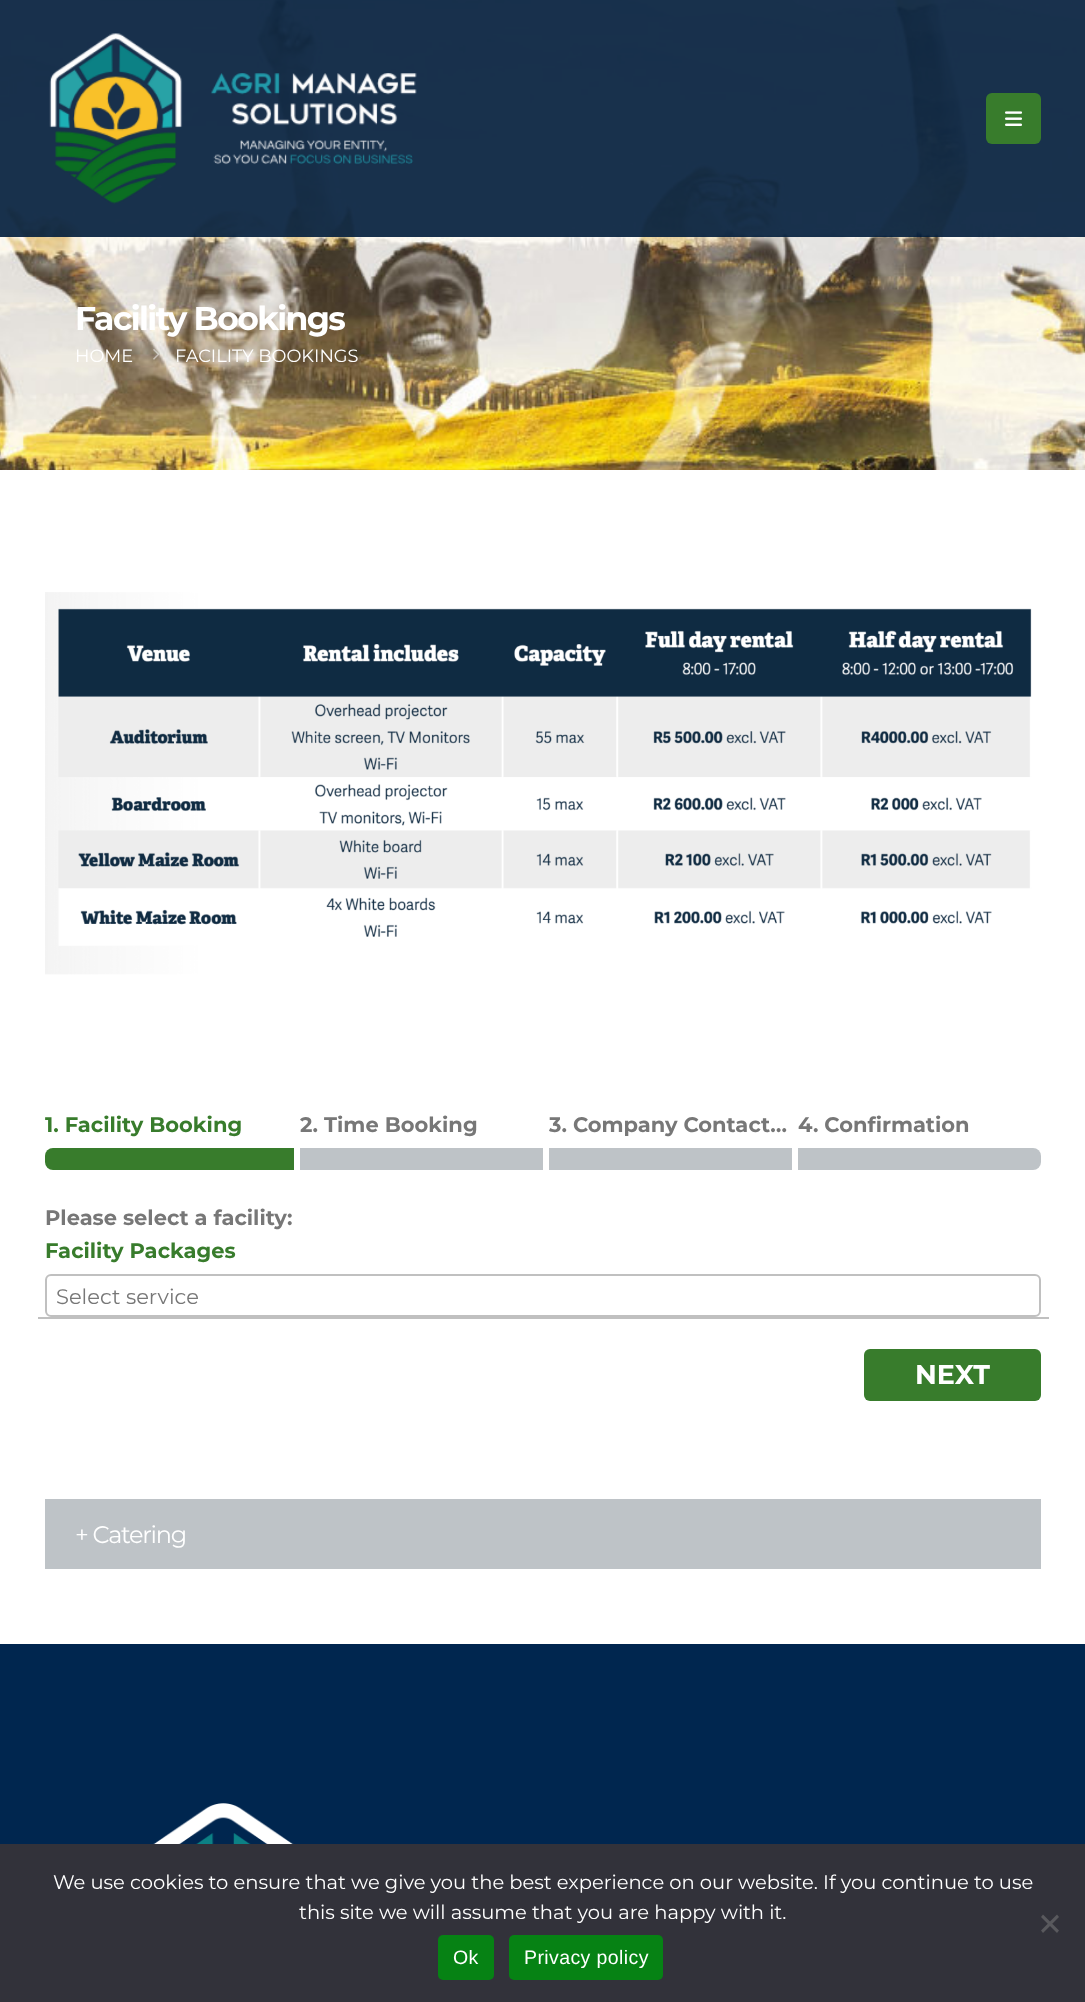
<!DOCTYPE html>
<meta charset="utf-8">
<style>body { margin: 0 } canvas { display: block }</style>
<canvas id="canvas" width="1085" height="2002"></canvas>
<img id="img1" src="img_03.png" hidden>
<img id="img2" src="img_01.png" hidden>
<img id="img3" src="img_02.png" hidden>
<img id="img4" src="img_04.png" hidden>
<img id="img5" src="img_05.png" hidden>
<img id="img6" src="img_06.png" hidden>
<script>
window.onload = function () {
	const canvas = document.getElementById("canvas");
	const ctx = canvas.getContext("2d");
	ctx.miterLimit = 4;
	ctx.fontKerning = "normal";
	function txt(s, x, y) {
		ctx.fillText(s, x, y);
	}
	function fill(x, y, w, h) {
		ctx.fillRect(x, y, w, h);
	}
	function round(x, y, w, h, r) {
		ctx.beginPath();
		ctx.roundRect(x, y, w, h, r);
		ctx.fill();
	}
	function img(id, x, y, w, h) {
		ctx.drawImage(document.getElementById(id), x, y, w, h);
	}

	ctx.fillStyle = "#FFFFFF";
	fill(0, 0, 1085, 2002);
	img("img1", 0, 0, 1085, 470);
	ctx.fillStyle = "rgba(0, 0, 0, 0.7)";
	fill(0, 0, 1085, 237);
	ctx.fillStyle = "rgba(0, 38, 79, 0.67)";
	fill(0, 0, 1085, 237);
	img("img2", 49, 33, 368, 171);
	ctx.fillStyle = "#387C2C";
	round(986, 93, 55, 51, 6);
	img("img3", 1005, 111, 17, 15);
	img("img4", 153, 349, 7, 11);
	img("img5", 45, 592, 987, 383);
	ctx.beginPath();
	ctx.roundRect(45, 1148, 249, 22, [8, 0, 0, 8]);
	ctx.fill();
	ctx.fillStyle = "#BEC3C7";
	fill(300, 1148, 243, 22);
	fill(549, 1148, 243, 22);
	ctx.beginPath();
	ctx.roundRect(798, 1148, 243, 22, [0, 8, 8, 0]);
	ctx.fill();
	ctx.beginPath();
	ctx.roundRect(46, 1275, 994, 41, 5);
	ctx.strokeStyle = "#C0C0C0";
	ctx.lineWidth = 2;
	ctx.stroke();
	ctx.fillStyle = "#C0C0C0";
	fill(38, 1317, 1011, 2);
	ctx.fillStyle = "#387C2C";
	round(864, 1349, 177, 52, 6);
	ctx.fillStyle = "#BEC3C7";
	fill(45, 1499, 996, 70);
	ctx.fillStyle = "#00264F";
	fill(0, 1644, 1085, 200);
	img("img6", 153, 1803, 141, 41);
	ctx.fillStyle = "#32323A";
	fill(0, 1844, 1085, 158);
	ctx.fillStyle = "#59595D";
	ctx.beginPath();
	ctx.moveTo(1057, 1914.5);
	ctx.lineTo(1059, 1917);
	ctx.lineTo(1043, 1933);
	ctx.lineTo(1041, 1930.5);
	ctx.closePath();
	ctx.fill();
	ctx.beginPath();
	ctx.moveTo(1041, 1917);
	ctx.lineTo(1043, 1914.5);
	ctx.lineTo(1059, 1930.5);
	ctx.lineTo(1057, 1933);
	ctx.closePath();
	ctx.fill();
	ctx.fillStyle = "#068214";
	round(438, 1935, 56, 45, 5);
	round(509, 1935, 154, 45, 5);
	ctx.letterSpacing = "-1.6px";
	ctx.font = "bold 33px Montserrat";
	ctx.fillStyle = "#FFFFFF";
	txt("Facility Bookings", 75, 330);
	ctx.letterSpacing = "0px";
	ctx.font = "17.8px Montserrat";
	txt("HOME", 75, 362);
	txt("FACILITY BOOKINGS", 175, 362);
	ctx.font = "bold 21px Montserrat";
	ctx.fillStyle = "#387C2C";
	txt("1. Facility Booking", 45, 1132);
	ctx.fillStyle = "#777777";
	txt("2. Time Booking", 300, 1132);
	txt("3. Company Contact…", 549, 1132);
	txt("4. Confirmation", 798, 1132);
	txt("Please select a facility:", 45, 1225);
	ctx.fillStyle = "#387C2C";
	txt("Facility Packages", 45, 1258);
	ctx.font = "21px Montserrat";
	ctx.fillStyle = "#777777";
	txt("Select service", 56, 1304);
	ctx.font = "bold 27px Montserrat";
	ctx.fillStyle = "#FFFFFF";
	txt("NEXT", 915, 1384);
	ctx.letterSpacing = "-1.25px";
	ctx.font = "24px Montserrat";
	txt("+ Catering", 75, 1543);
	ctx.letterSpacing = "0px";
	ctx.font = "19.5px Montserrat";
	txt("We use cookies to ensure that we give you the best experience on our website. If you continue to use", 53, 1889);
	txt("this site we will assume that you are happy with it.", 299, 1919);
	ctx.letterSpacing = "0.4px";
	ctx.font = "19.5px Liberation Sans";
	txt("Ok", 453, 1964);
	txt("Privacy policy", 524, 1964);
};
</script>
